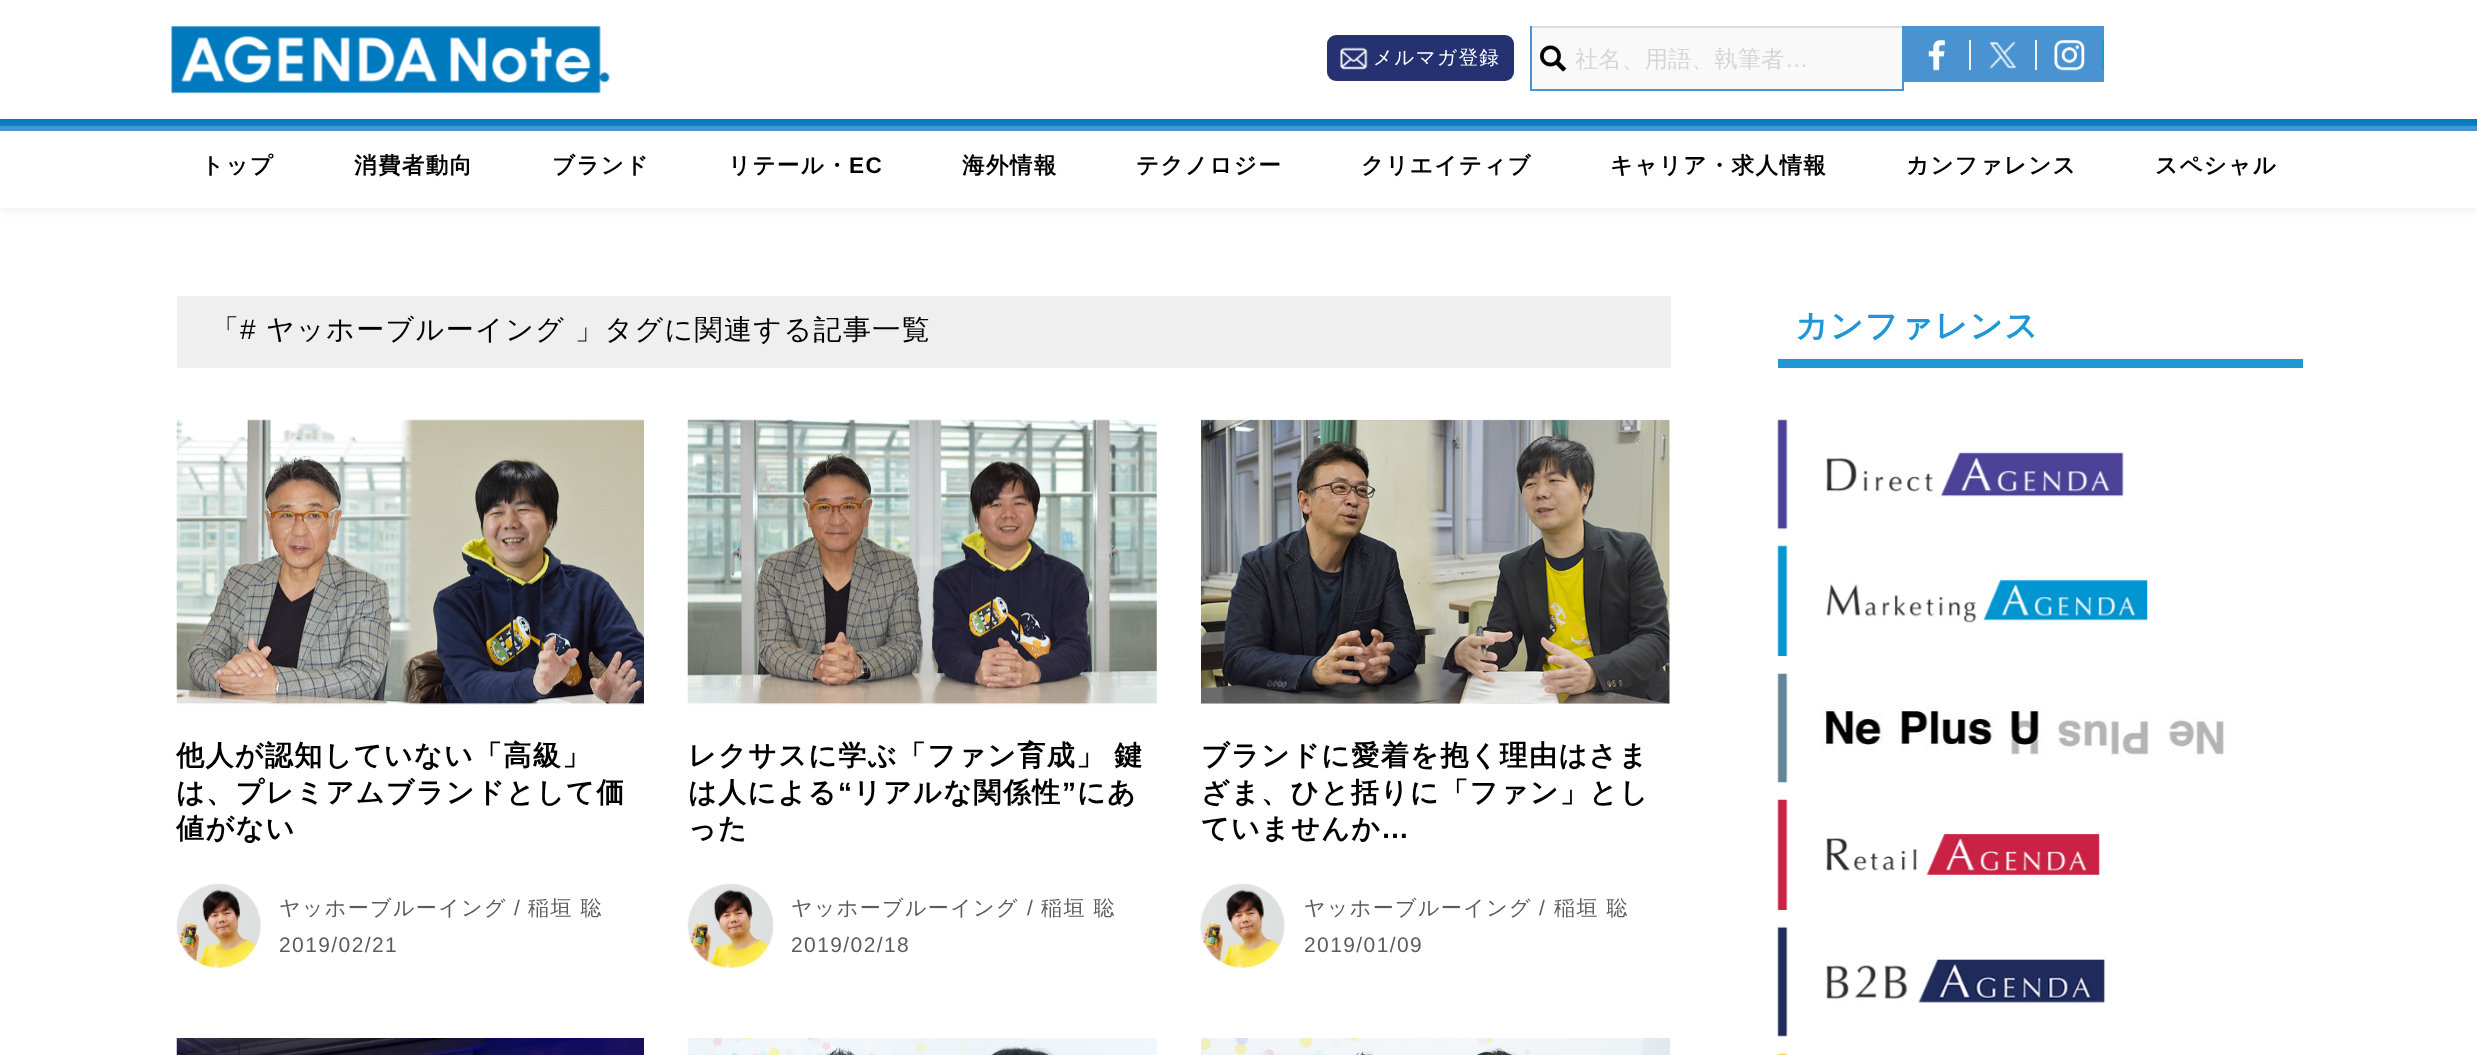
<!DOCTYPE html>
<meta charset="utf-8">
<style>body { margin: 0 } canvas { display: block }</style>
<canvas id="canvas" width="2477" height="1055"></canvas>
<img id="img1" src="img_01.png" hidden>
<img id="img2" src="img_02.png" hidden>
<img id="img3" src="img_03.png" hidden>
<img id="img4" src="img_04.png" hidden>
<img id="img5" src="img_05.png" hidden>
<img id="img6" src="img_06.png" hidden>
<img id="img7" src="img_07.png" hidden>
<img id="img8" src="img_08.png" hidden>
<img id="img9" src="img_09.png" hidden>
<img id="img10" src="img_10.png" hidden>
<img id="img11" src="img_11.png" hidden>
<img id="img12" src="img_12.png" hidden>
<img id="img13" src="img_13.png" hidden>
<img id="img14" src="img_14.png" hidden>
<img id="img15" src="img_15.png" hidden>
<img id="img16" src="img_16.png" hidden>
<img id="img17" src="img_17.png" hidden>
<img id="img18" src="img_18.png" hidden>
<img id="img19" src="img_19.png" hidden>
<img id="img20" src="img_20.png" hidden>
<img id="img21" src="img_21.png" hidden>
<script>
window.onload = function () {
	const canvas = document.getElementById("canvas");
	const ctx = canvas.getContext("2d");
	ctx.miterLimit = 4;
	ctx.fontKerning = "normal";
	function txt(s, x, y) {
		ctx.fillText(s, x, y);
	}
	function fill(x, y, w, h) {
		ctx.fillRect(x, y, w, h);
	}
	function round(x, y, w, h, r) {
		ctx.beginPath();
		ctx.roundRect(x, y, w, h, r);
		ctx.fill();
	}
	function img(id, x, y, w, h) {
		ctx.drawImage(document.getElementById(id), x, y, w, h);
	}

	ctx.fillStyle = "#FFFFFF";
	fill(0, 0, 2477, 1055);
	ctx.fillStyle = "#007ABF";
	fill(0, 119, 2477, 7);
	img("img1", 171, 26, 439, 68);
	ctx.fillStyle = "#263172";
	round(1327, 35, 187, 46, 9);
	img("img2", 1340, 47, 28, 23);
	ctx.fillStyle = "#F9F9F9";
	fill(1532, 28, 370, 61);
	img("img3", 1540, 45, 27, 27);
	ctx.fillStyle = "#DEDEDE";
	fill(1530, 26, 374, 2);
	ctx.fillStyle = "#4994D0";
	fill(1902, 26, 2, 65);
	fill(1530, 89, 374, 2);
	fill(1530, 26, 2, 65);
	fill(1904, 26, 200, 56);
	img("img4", 1928, 40, 17, 31);
	ctx.fillStyle = "#F1F1F1";
	fill(1969, 40, 2, 30);
	img("img5", 1989, 41, 28, 28);
	fill(2035, 40, 2, 30);
	img("img6", 2054, 40, 31, 31);
	ctx.fillStyle = "#1F96D5";
	fill(2102, 40, 2, 30);
	ctx.save();
	ctx.beginPath();
	ctx.moveTo(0, 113);
	ctx.lineTo(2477, 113);
	ctx.lineTo(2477, 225);
	ctx.lineTo(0, 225);
	ctx.closePath();
	ctx.moveTo(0, 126);
	ctx.lineTo(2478, 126);
	ctx.lineTo(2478, 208);
	ctx.lineTo(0, 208);
	ctx.closePath();
	ctx.clip("evenodd");
	ctx.fillStyle = "rgba(202, 202, 202, 0.35)";
	ctx.filter = "blur(4.5px)";
	ctx.beginPath();
	ctx.rect(0, 128, 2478, 82);
	ctx.fill();
	ctx.filter = "none";
	ctx.restore();
	ctx.fillStyle = "#4994D0";
	fill(0, 126, 2477, 5);
	ctx.fillStyle = "#EFEFEF";
	fill(177, 296, 1494, 72);
	img("img7", 176, 419, 468, 286);
	img("img8", 176, 883, 85, 85);
	img("img9", 687, 419, 470, 286);
	img("img10", 687, 883, 87, 85);
	img("img11", 1201, 419, 469, 285);
	img("img12", 1200, 883, 85, 85);
	img("img13", 176, 1038, 468, 17);
	img("img14", 687, 1038, 470, 17);
	img("img15", 1201, 1038, 469, 17);
	ctx.fillStyle = "#2096D5";
	fill(1778, 359, 525, 9);
	img("img16", 1777, 419, 347, 111);
	img("img17", 1777, 545, 371, 111);
	img("img18", 1777, 673, 448, 110);
	img("img19", 1777, 799, 323, 111);
	img("img20", 1777, 926, 329, 111);
	img("img21", 1777, 1052, 11, 3);
	ctx.letterSpacing = "1.4px";
	ctx.font = "500 19.5px WenQuanYi Zen Hei";
	ctx.fillStyle = "#FFFFFF";
	txt("メルマガ登録", 1373, 64);
	ctx.letterSpacing = "0px";
	ctx.font = "500 23.25px WenQuanYi Zen Hei";
	ctx.fillStyle = "#D6D5DA";
	txt("社名、用語、執筆者", 1575, 67);
	ctx.font = "23.25px Liberation Sans";
	txt("…", 1785, 67);
	ctx.letterSpacing = "1.4px";
	ctx.font = "bold 22.5px WenQuanYi Zen Hei";
	ctx.fillStyle = "#000000";
	txt("トップ", 201, 173);
	txt("消費者動向", 354, 173);
	txt("ブランド", 552, 173);
	txt("リテール・", 728, 173);
	ctx.font = "bold 22.5px Liberation Sans";
	txt("EC", 849, 173);
	ctx.font = "bold 22.5px WenQuanYi Zen Hei";
	txt("海外情報", 962, 173);
	txt("テクノロジー", 1136, 173);
	txt("クリエイティブ", 1361, 173);
	txt("キャリア・求人情報", 1610, 173);
	txt("カンファレンス", 1906, 173);
	txt("スペシャル", 2155, 173);
	ctx.font = "500 28px WenQuanYi Zen Hei";
	txt("「", 211, 339);
	ctx.font = "28px Liberation Sans";
	txt("#", 240, 339);
	ctx.font = "500 28px WenQuanYi Zen Hei";
	txt("ヤッホーブルーイング", 266, 339);
	txt("」タグに関連する記事一覧", 575, 339);
	ctx.font = "bold 28px WenQuanYi Zen Hei";
	txt("他人が認知していない「高級」", 176, 765);
	txt("は、プレミアムブランドとして価", 176, 802);
	txt("値がない", 176, 838);
	ctx.font = "500 21px WenQuanYi Zen Hei";
	ctx.fillStyle = "#5B5B5B";
	txt("ヤッホーブルーイング", 279, 915);
	ctx.font = "21px Liberation Sans";
	txt("/", 514, 915);
	ctx.font = "500 21px WenQuanYi Zen Hei";
	txt("稲垣 聡", 528, 915);
	ctx.font = "21px Liberation Sans";
	txt("2019/02/21", 279, 952);
	ctx.wordSpacing = "-1px";
	ctx.font = "bold 28px WenQuanYi Zen Hei";
	ctx.fillStyle = "#000000";
	txt("レクサスに学ぶ「ファン育成」 鍵", 688, 765);
	ctx.wordSpacing = "0px";
	txt("は人による", 688, 802);
	ctx.font = "bold 28px Liberation Sans";
	txt("“", 838, 802);
	ctx.font = "bold 28px WenQuanYi Zen Hei";
	txt("リアルな関係性", 853, 802);
	ctx.font = "bold 28px Liberation Sans";
	txt("”", 1062, 802);
	ctx.font = "bold 28px WenQuanYi Zen Hei";
	txt("にあ", 1077, 802);
	txt("った", 688, 838);
	ctx.font = "500 21px WenQuanYi Zen Hei";
	ctx.fillStyle = "#5B5B5B";
	txt("ヤッホーブルーイング", 791, 915);
	ctx.font = "21px Liberation Sans";
	txt("/", 1027, 915);
	ctx.font = "500 21px WenQuanYi Zen Hei";
	txt("稲垣 聡", 1041, 915);
	ctx.font = "21px Liberation Sans";
	txt("2019/02/18", 791, 952);
	ctx.font = "bold 28px WenQuanYi Zen Hei";
	ctx.fillStyle = "#000000";
	txt("ブランドに愛着を抱く理由はさま", 1201, 765);
	txt("ざま、ひと括りに「ファン」とし", 1201, 802);
	txt("ていませんか", 1201, 838);
	ctx.font = "bold 28px Liberation Sans";
	txt("…", 1381, 838);
	ctx.font = "500 21px WenQuanYi Zen Hei";
	ctx.fillStyle = "#5B5B5B";
	txt("ヤッホーブルーイング", 1304, 915);
	ctx.font = "21px Liberation Sans";
	txt("/", 1539, 915);
	ctx.font = "500 21px WenQuanYi Zen Hei";
	txt("稲垣 聡", 1554, 915);
	ctx.font = "21px Liberation Sans";
	txt("2019/01/09", 1304, 952);
	ctx.font = "bold 32.75px WenQuanYi Zen Hei";
	ctx.fillStyle = "#2096D5";
	txt("カンファレンス", 1795, 337);
};
</script>
